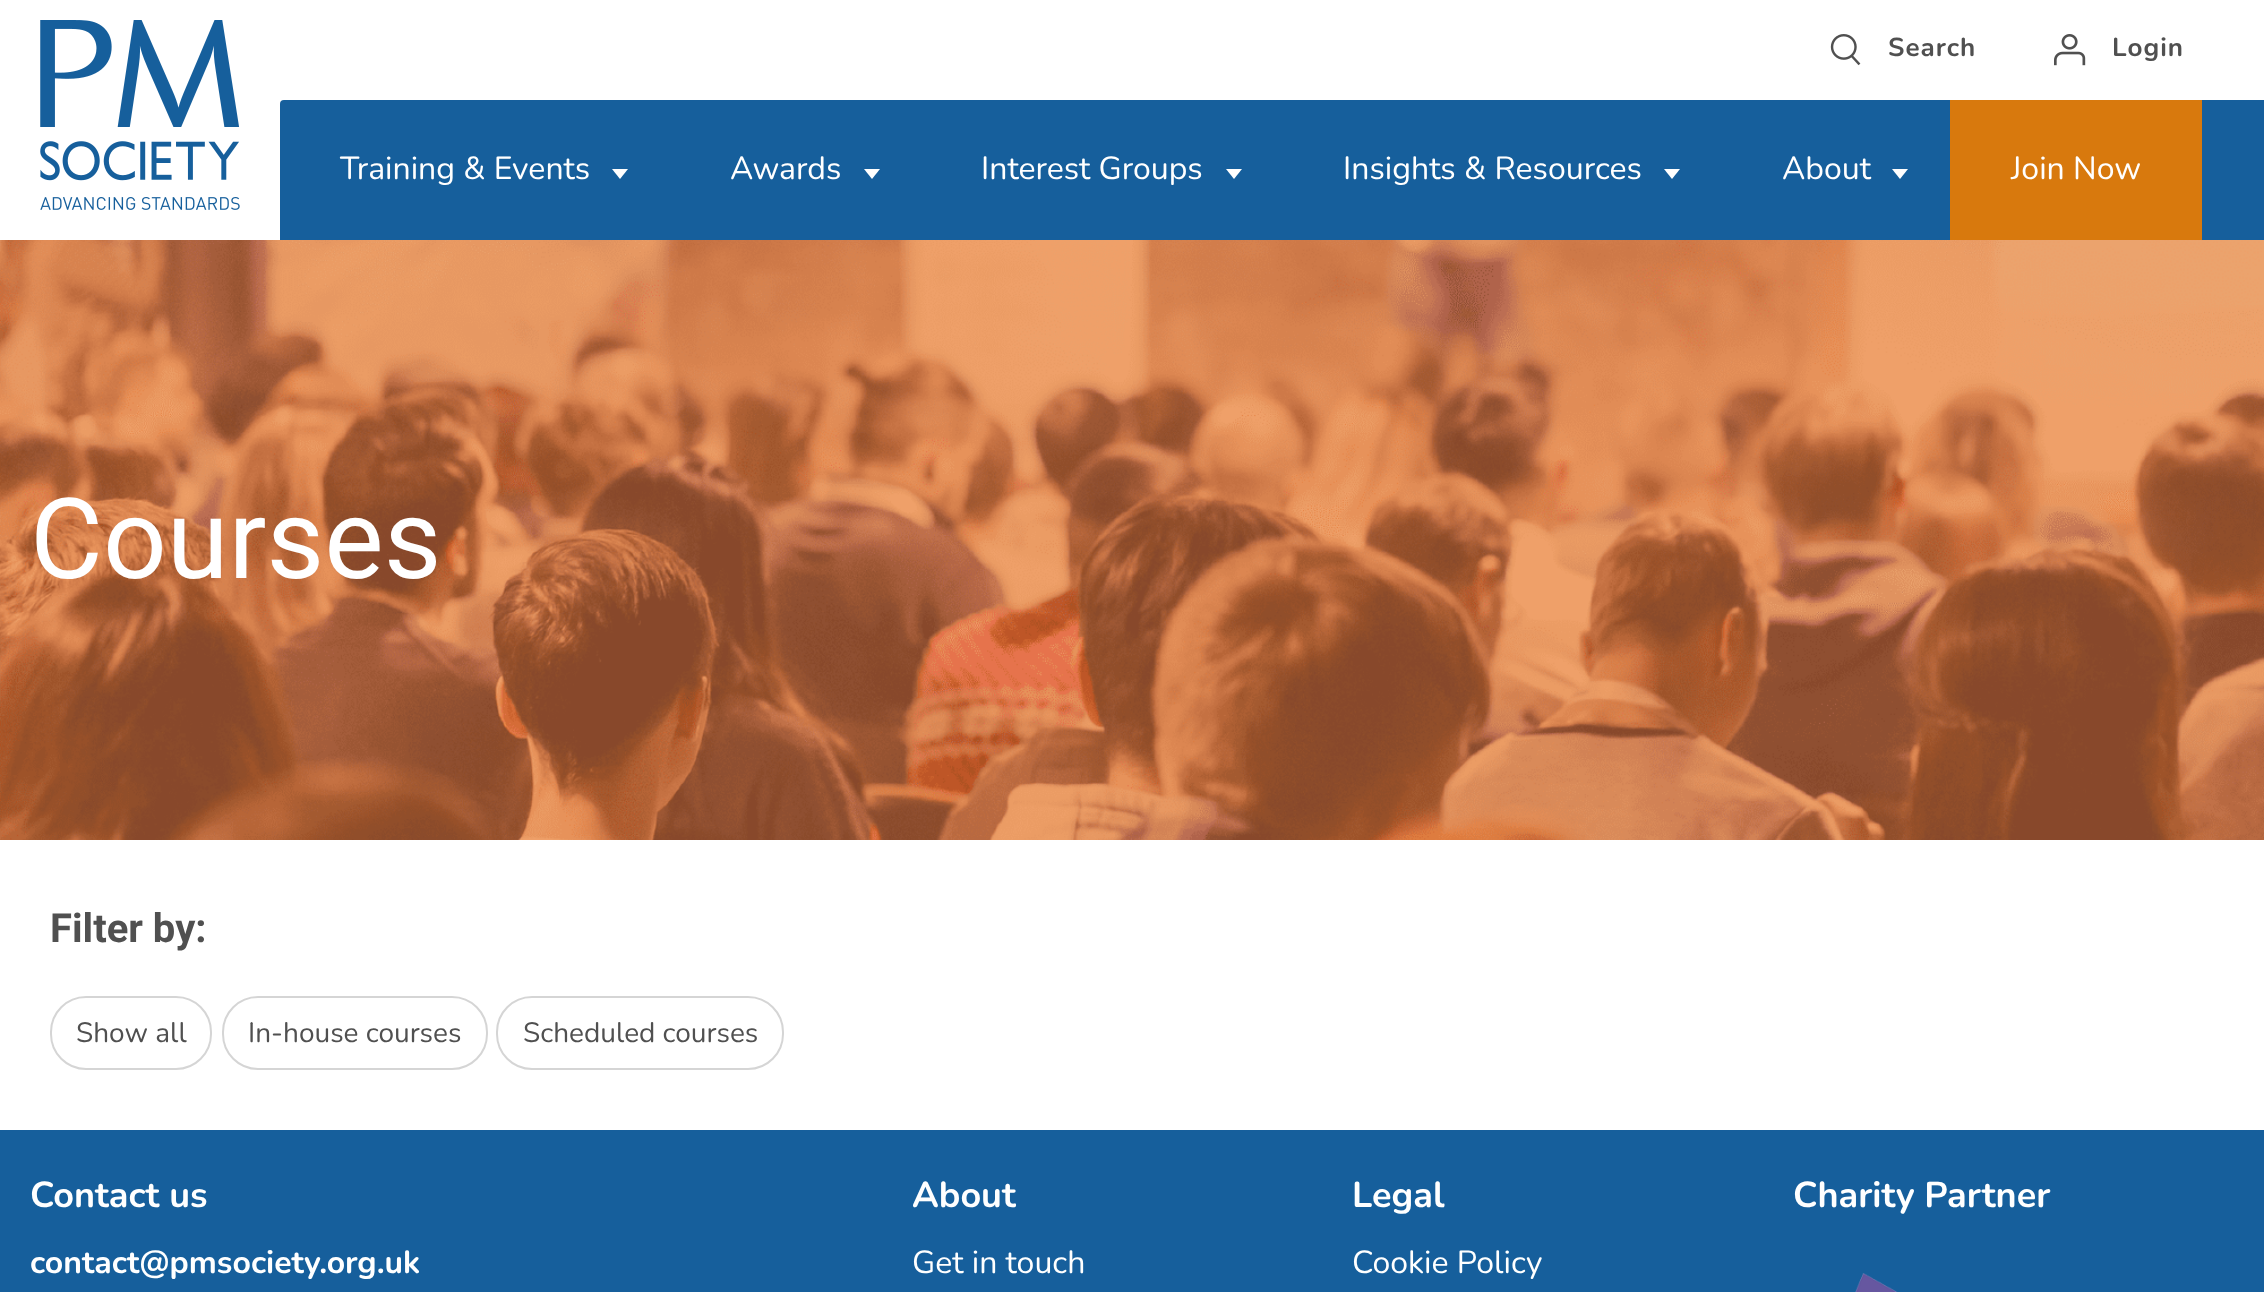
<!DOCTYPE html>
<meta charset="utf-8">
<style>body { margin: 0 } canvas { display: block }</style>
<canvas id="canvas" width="2264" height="1292"></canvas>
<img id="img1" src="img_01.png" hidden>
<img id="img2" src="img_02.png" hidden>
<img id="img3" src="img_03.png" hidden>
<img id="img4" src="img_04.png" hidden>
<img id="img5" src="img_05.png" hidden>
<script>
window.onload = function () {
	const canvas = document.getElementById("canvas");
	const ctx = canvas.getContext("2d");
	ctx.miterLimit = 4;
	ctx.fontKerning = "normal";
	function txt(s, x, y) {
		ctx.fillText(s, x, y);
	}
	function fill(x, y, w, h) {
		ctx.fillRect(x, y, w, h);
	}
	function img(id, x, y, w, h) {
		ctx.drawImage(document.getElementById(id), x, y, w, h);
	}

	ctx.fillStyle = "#FFFFFF";
	fill(0, 0, 2264, 1292);
	img("img1", 40, 20, 200, 190);
	img("img2", 1830, 34, 31, 32);
	img("img3", 2054, 34, 32, 32);
	ctx.fillStyle = "#165F9C";
	ctx.beginPath();
	ctx.roundRect(280, 100, 1984, 140, [4, 0, 0, 0]);
	ctx.fill();
	ctx.fillStyle = "#FFFFFF";
	ctx.beginPath();
	ctx.moveTo(612, 169);
	ctx.lineTo(628, 169);
	ctx.lineTo(620, 179);
	ctx.closePath();
	ctx.fill();
	ctx.beginPath();
	ctx.moveTo(864, 169);
	ctx.lineTo(880, 169);
	ctx.lineTo(872, 179);
	ctx.closePath();
	ctx.fill();
	ctx.beginPath();
	ctx.moveTo(1226, 169);
	ctx.lineTo(1242, 169);
	ctx.lineTo(1234, 179);
	ctx.closePath();
	ctx.fill();
	ctx.beginPath();
	ctx.moveTo(1664, 169);
	ctx.lineTo(1680, 169);
	ctx.lineTo(1672, 179);
	ctx.closePath();
	ctx.fill();
	ctx.beginPath();
	ctx.moveTo(1892, 169);
	ctx.lineTo(1908, 169);
	ctx.lineTo(1900, 179);
	ctx.closePath();
	ctx.fill();
	ctx.fillStyle = "#D8790D";
	fill(1950, 100, 252, 140);
	img("img4", 0, 240, 2264, 600);
	ctx.beginPath();
	ctx.roundRect(51, 997, 160, 72, 35);
	ctx.strokeStyle = "#D5D5D5";
	ctx.lineWidth = 2;
	ctx.stroke();
	ctx.beginPath();
	ctx.roundRect(223, 997, 264, 72, 35);
	ctx.stroke();
	ctx.beginPath();
	ctx.roundRect(497, 997, 286, 72, 35);
	ctx.stroke();
	ctx.fillStyle = "#165F9C";
	fill(0, 1130, 2264, 162);
	img("img5", 1855, 1273, 43, 19);
	ctx.letterSpacing = "1px";
	ctx.font = "bold 26px Nunito";
	ctx.fillStyle = "#505050";
	txt("Search", 1888, 56);
	txt("Login", 2112, 56);
	ctx.letterSpacing = "0px";
	ctx.font = "32px Nunito";
	ctx.fillStyle = "#FFFFFF";
	txt("Training & Events", 340, 179);
	txt("Awards", 730, 179);
	txt("Interest Groups", 981, 179);
	txt("Insights & Resources", 1343, 179);
	txt("About", 1782, 179);
	txt("Join Now", 2011, 179);
	ctx.font = "112px Roboto";
	txt("Courses", 30, 578);
	ctx.font = "bold 40px Roboto";
	ctx.fillStyle = "#505050";
	txt("Filter by:", 50, 942);
	ctx.font = "28px Nunito";
	txt("Show all", 76, 1042);
	txt("In-house courses", 248, 1042);
	txt("Scheduled courses", 523, 1042);
	ctx.font = "bold 36px Nunito";
	ctx.fillStyle = "#FFFFFF";
	txt("Contact us", 30, 1207);
	ctx.font = "bold 32px Nunito";
	txt("contact@pmsociety.org.uk", 30, 1273);
	ctx.font = "bold 36px Nunito";
	txt("About", 912, 1207);
	ctx.font = "32px Nunito";
	txt("Get in touch", 912, 1273);
	ctx.font = "bold 36px Nunito";
	txt("Legal", 1352, 1207);
	ctx.font = "32px Nunito";
	txt("Cookie Policy", 1352, 1273);
	ctx.font = "bold 36px Nunito";
	txt("Charity Partner", 1793, 1207);
};
</script>
